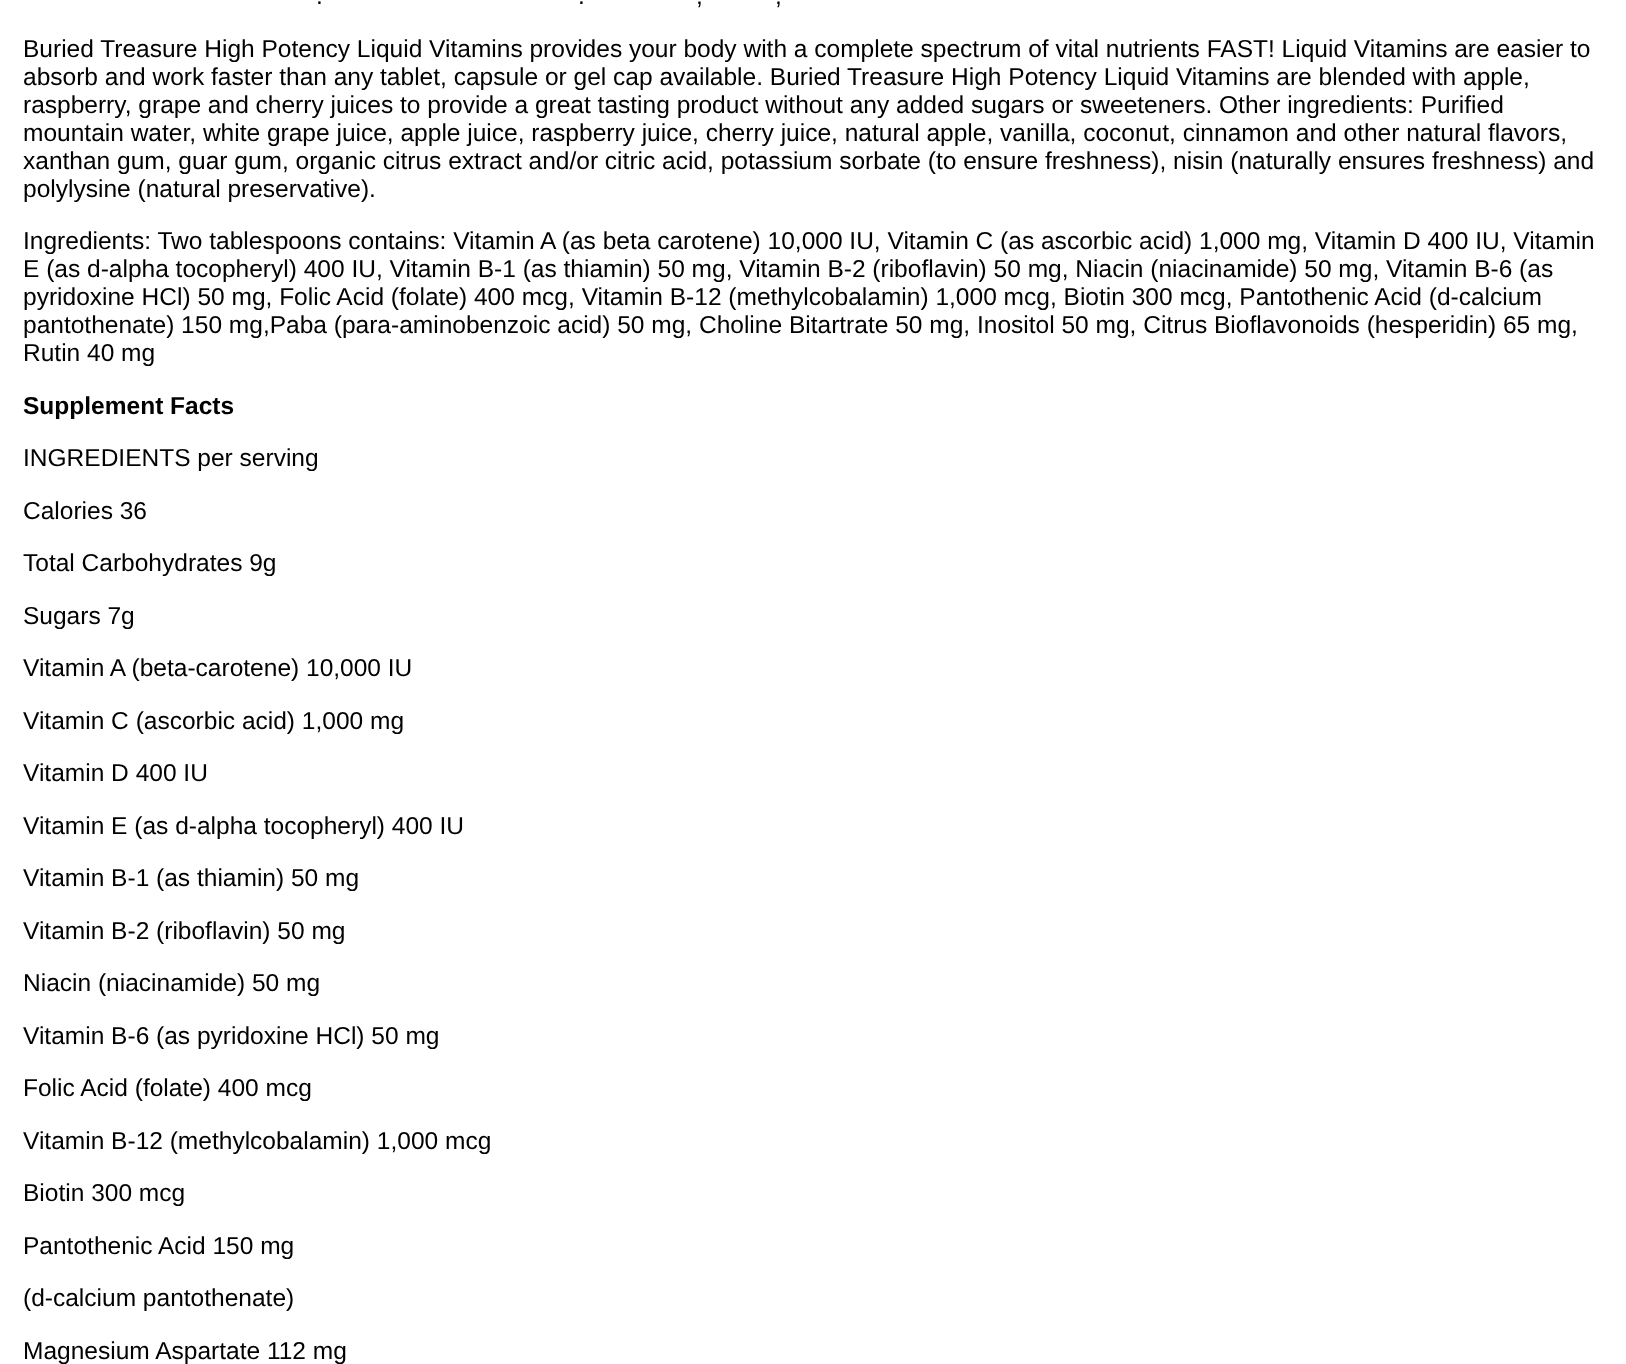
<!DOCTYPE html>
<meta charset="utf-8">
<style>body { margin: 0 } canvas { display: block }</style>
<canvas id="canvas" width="1626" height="1364"></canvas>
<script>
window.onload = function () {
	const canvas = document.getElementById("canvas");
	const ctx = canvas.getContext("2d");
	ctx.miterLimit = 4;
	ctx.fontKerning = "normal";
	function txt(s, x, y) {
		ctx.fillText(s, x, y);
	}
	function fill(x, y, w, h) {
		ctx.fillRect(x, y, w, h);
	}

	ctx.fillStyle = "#FFFFFF";
	fill(0, 0, 1626, 1364);
	ctx.font = "24.52px Liberation Sans";
	ctx.fillStyle = "#000000";
	txt(".", 316, 4);
	txt(".", 578, 4);
	txt(",", 696, 4);
	txt(",", 775, 4);
	txt("Buried Treasure High Potency Liquid Vitamins provides your body with a complete spectrum of vital nutrients FAST! Liquid Vitamins are easier to", 23, 57);
	txt("absorb and work faster than any tablet, capsule or gel cap available. Buried Treasure High Potency Liquid Vitamins are blended with apple,", 23, 85);
	txt("raspberry, grape and cherry juices to provide a great tasting product without any added sugars or sweeteners. Other ingredients: Purified", 23, 113);
	txt("mountain water, white grape juice, apple juice, raspberry juice, cherry juice, natural apple, vanilla, coconut, cinnamon and other natural flavors,", 23, 141);
	txt("xanthan gum, guar gum, organic citrus extract and/or citric acid, potassium sorbate (to ensure freshness), nisin (naturally ensures freshness) and", 23, 169);
	txt("polylysine (natural preservative).", 23, 197);
	txt("Ingredients: Two tablespoons contains: Vitamin A (as beta carotene) 10,000 IU, Vitamin C (as ascorbic acid) 1,000 mg, Vitamin D 400 IU, Vitamin", 23, 249);
	txt("E (as d-alpha tocopheryl) 400 IU, Vitamin B-1 (as thiamin) 50 mg, Vitamin B-2 (riboflavin) 50 mg, Niacin (niacinamide) 50 mg, Vitamin B-6 (as", 23, 277);
	txt("pyridoxine HCl) 50 mg, Folic Acid (folate) 400 mcg, Vitamin B-12 (methylcobalamin) 1,000 mcg, Biotin 300 mcg, Pantothenic Acid (d-calcium", 23, 305);
	txt("pantothenate) 150 mg,Paba (para-aminobenzoic acid) 50 mg, Choline Bitartrate 50 mg, Inositol 50 mg, Citrus Bioflavonoids (hesperidin) 65 mg,", 23, 333);
	txt("Rutin 40 mg", 23, 361);
	ctx.font = "bold 24.52px Liberation Sans";
	txt("Supplement Facts", 23, 414);
	ctx.font = "24.52px Liberation Sans";
	txt("INGREDIENTS per serving", 23, 466);
	txt("Calories 36", 23, 519);
	txt("Total Carbohydrates 9g", 23, 571);
	txt("Sugars 7g", 23, 624);
	txt("Vitamin A (beta-carotene) 10,000 IU", 23, 676);
	txt("Vitamin C (ascorbic acid) 1,000 mg", 23, 729);
	txt("Vitamin D 400 IU", 23, 781);
	txt("Vitamin E (as d-alpha tocopheryl) 400 IU", 23, 834);
	txt("Vitamin B-1 (as thiamin) 50 mg", 23, 886);
	txt("Vitamin B-2 (riboflavin) 50 mg", 23, 939);
	txt("Niacin (niacinamide) 50 mg", 23, 991);
	txt("Vitamin B-6 (as pyridoxine HCl) 50 mg", 23, 1044);
	txt("Folic Acid (folate) 400 mcg", 23, 1096);
	txt("Vitamin B-12 (methylcobalamin) 1,000 mcg", 23, 1149);
	txt("Biotin 300 mcg", 23, 1201);
	txt("Pantothenic Acid 150 mg", 23, 1254);
	txt("(d-calcium pantothenate)", 23, 1306);
	txt("Magnesium Aspartate 112 mg", 23, 1359);
};
</script>
